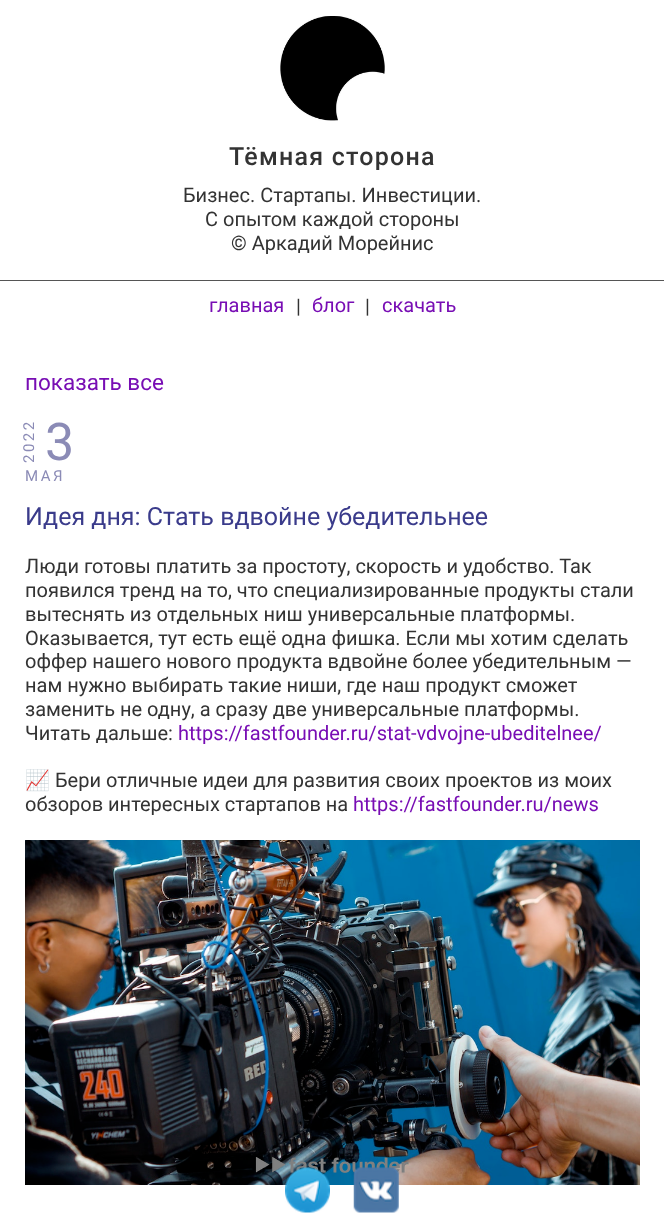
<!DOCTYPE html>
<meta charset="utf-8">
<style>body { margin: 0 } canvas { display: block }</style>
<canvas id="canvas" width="664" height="1223"></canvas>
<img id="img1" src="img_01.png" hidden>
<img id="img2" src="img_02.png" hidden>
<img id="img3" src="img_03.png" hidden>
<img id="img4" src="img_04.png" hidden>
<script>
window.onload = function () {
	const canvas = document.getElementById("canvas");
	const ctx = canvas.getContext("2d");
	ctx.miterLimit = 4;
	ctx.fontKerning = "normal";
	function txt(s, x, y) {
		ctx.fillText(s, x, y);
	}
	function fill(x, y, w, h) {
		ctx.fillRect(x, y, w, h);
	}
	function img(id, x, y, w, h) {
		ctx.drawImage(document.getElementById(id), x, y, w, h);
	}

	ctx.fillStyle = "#FFFFFF";
	fill(0, 0, 664, 1223);
	img("img1", 280, 16, 105, 105);
	ctx.fillStyle = "#555555";
	fill(0, 280, 664, 1);
	img("img2", 25, 840, 615, 345);
	img("img3", 285, 1167, 45, 46);
	img("img4", 353, 1167, 46, 46);
	ctx.letterSpacing = "1.25px";
	ctx.font = "500 25px Roboto";
	ctx.fillStyle = "#333333";
	txt("Тёмная сторона", 229, 165);
	ctx.letterSpacing = "0px";
	ctx.font = "20px Roboto";
	txt("Бизнес. Стартапы. Инвестиции.", 183, 202);
	txt("С опытом каждой стороны", 205, 226);
	txt("© Аркадий Морейнис", 231, 250);
	ctx.fillStyle = "#780DB4";
	txt("главная", 209, 312);
	ctx.fillStyle = "#333333";
	txt("|", 296, 313);
	ctx.fillStyle = "#780DB4";
	txt("блог", 312, 312);
	ctx.fillStyle = "#333333";
	txt("|", 365, 313);
	ctx.fillStyle = "#780DB4";
	txt("скачать", 382, 312);
	ctx.font = "22.5px Roboto";
	txt("показать все", 25, 390);
	ctx.letterSpacing = "2.5px";
	ctx.font = "15px Roboto";
	ctx.fillStyle = "#8B8BB6";
	ctx.save();
	ctx.translate(34, 463);
	ctx.rotate(-90 * Math.PI / 180);
	ctx.fillText("2022", 0, 0);
	ctx.restore();
	ctx.letterSpacing = "0px";
	ctx.font = "52px Roboto";
	txt("3", 45, 460);
	ctx.letterSpacing = "2.5px";
	ctx.font = "15px Roboto";
	txt("МАЯ", 25, 481);
	ctx.letterSpacing = "0px";
	ctx.font = "25px Roboto";
	ctx.fillStyle = "#3A3B8B";
	txt("Идея дня: Стать вдвойне убедительнее", 25, 525);
	ctx.font = "20px Roboto";
	ctx.fillStyle = "#333333";
	txt("Люди готовы платить за простоту, скорость и удобство. Так", 25, 573);
	txt("появился тренд на то, что специализированные продукты стали", 25, 597);
	txt("вытеснять из отдельных ниш универсальные платформы.", 25, 621);
	txt("Оказывается, тут есть ещё одна фишка. Если мы хотим сделать", 25, 645);
	txt("оффер нашего нового продукта вдвойне более убедительным —", 25, 668);
	txt("нам нужно выбирать такие ниши, где наш продукт сможет", 25, 692);
	txt("заменить не одну, а сразу две универсальные платформы.", 25, 716);
	txt("Читать дальше:", 25, 740);
	ctx.fillStyle = "#780DB4";
	txt("https://fastfounder.ru/stat-vdvojne-ubeditelnee/", 178, 740);
	ctx.font = "20px Noto Color Emoji";
	ctx.fillStyle = "#333333";
	txt("📈", 25, 787);
	ctx.font = "20px Roboto";
	txt("Бери отличные идеи для развития своих проектов из моих", 55, 787);
	txt("обзоров интересных стартапов на", 25, 811);
	ctx.fillStyle = "#780DB4";
	txt("https://fastfounder.ru/news", 353, 811);
};
</script>
